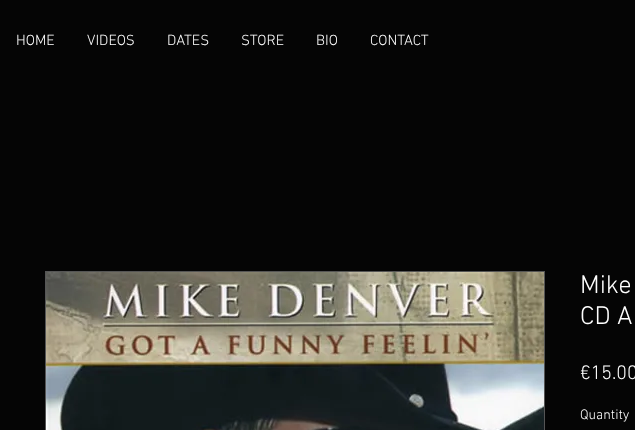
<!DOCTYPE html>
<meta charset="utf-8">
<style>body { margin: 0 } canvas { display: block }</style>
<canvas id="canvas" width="635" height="430"></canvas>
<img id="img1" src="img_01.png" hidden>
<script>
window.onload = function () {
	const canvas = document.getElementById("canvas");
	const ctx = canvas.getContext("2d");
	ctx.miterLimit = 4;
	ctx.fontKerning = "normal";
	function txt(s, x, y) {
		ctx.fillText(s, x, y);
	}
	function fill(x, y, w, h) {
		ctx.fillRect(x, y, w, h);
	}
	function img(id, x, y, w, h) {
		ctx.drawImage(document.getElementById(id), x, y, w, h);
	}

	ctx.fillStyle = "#050505";
	fill(0, 0, 635, 430);
	ctx.strokeStyle = "#555555";
	ctx.strokeRect(45.5, 271.5, 499, 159);
	img("img1", 46, 272, 498, 158);
	ctx.font = "300 15px 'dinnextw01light'";
	ctx.fillStyle = "#FFFFFF";
	txt("HOME", 16, 45);
	txt("VIDEOS", 87, 45);
	txt("DATES", 167, 45);
	txt("STORE", 241, 45);
	txt("BIO", 316, 45);
	txt("CONTACT", 370, 45);
	ctx.font = "300 26px 'dinnextw01light'";
	txt("Mike", 580, 293);
	txt("CD A", 580, 324);
	ctx.font = "300 20px 'dinnextw01light'";
	txt("€15.00", 580, 379);
	ctx.font = "300 14px 'dinnextw01light'";
	txt("Quantity", 580, 419);
};
</script>
